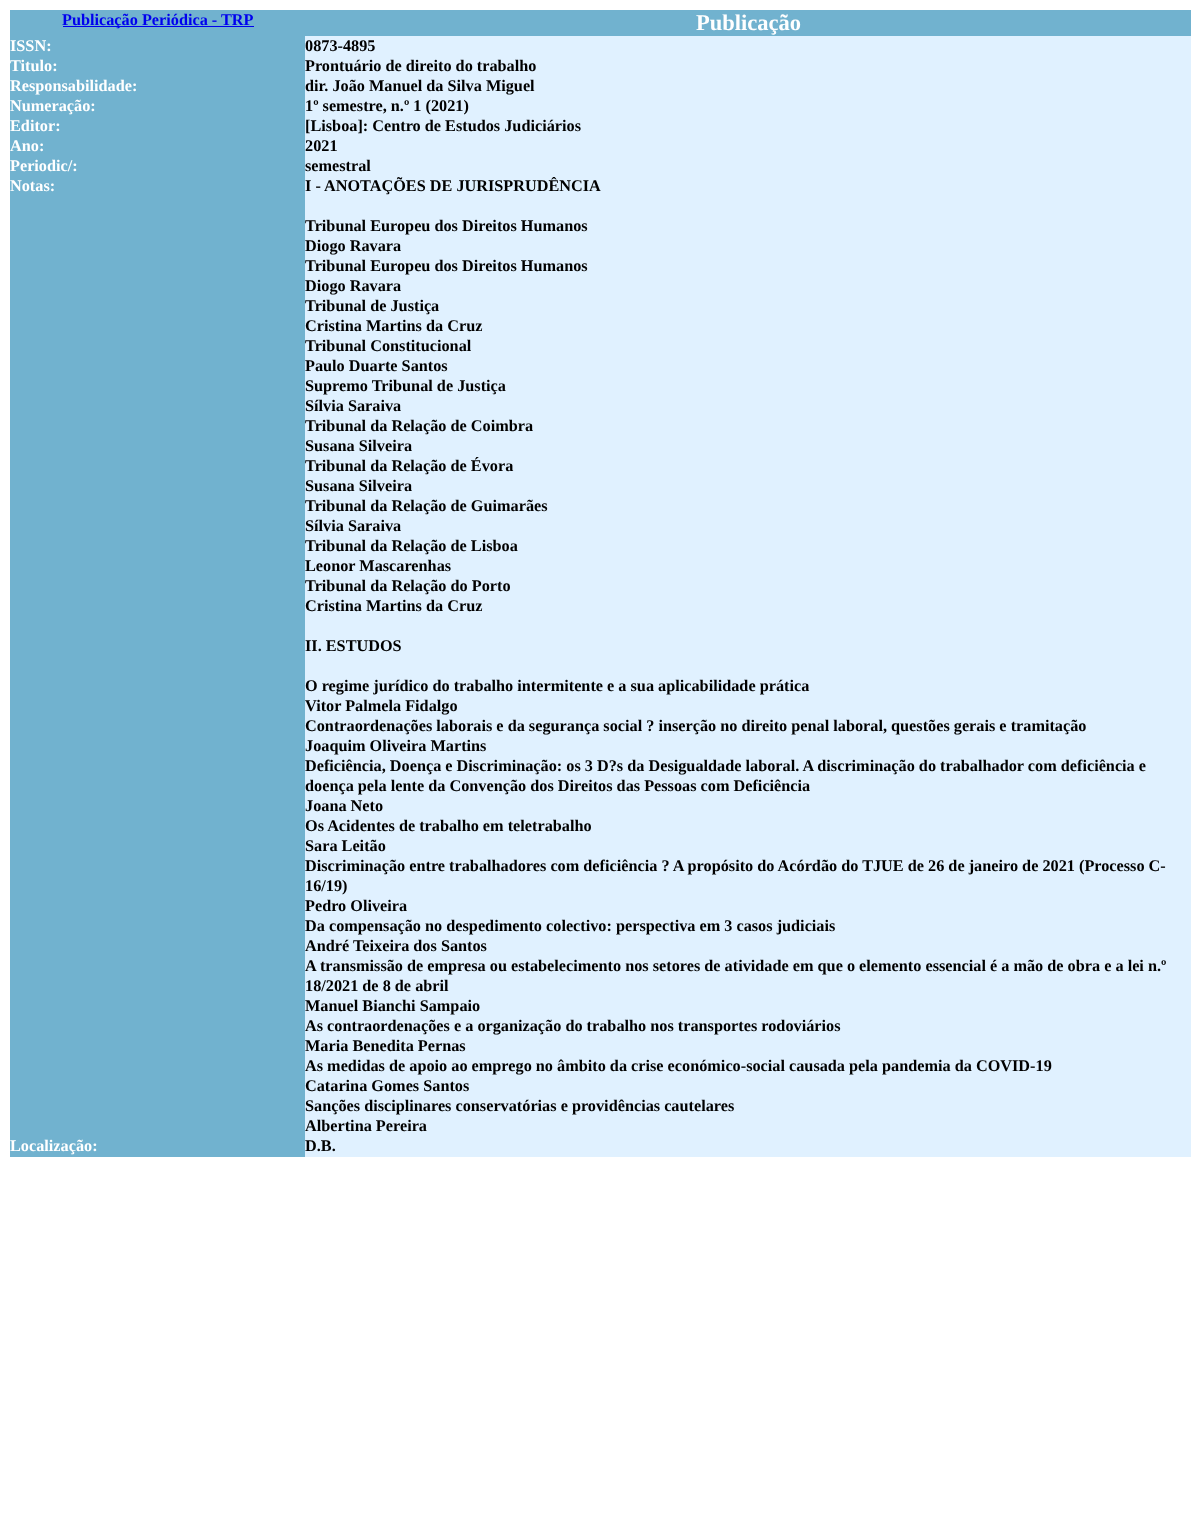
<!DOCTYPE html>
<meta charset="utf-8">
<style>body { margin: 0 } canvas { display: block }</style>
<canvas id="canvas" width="1201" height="1513"></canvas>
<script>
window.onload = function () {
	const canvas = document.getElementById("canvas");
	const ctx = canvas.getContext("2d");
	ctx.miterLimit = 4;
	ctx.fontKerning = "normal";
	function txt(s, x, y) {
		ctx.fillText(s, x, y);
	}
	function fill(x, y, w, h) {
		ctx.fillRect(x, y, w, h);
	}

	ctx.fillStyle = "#FFFFFF";
	fill(0, 0, 1201, 1513);
	ctx.fillStyle = "#71B2CF";
	fill(10, 10, 1181, 26);
	ctx.fillStyle = "#0000EE";
	fill(63, 26, 191, 1);
	ctx.fillStyle = "#71B2CF";
	fill(10, 36, 295, 1121);
	ctx.fillStyle = "#E0F1FF";
	fill(305, 36, 886, 1121);
	ctx.font = "bold 16.25px Liberation Serif";
	ctx.fillStyle = "#0000EE";
	txt("Publicação Periódica - TRP", 62, 25);
	ctx.font = "bold 22.5px Liberation Serif";
	ctx.fillStyle = "#FFFFFF";
	txt("Publicação", 696, 30);
	ctx.font = "bold 16.25px Liberation Serif";
	txt("ISSN:", 10, 51);
	ctx.fillStyle = "#000000";
	txt("0873-4895", 305, 51);
	ctx.fillStyle = "#FFFFFF";
	txt("Titulo:", 10, 71);
	ctx.fillStyle = "#000000";
	txt("Prontuário de direito do trabalho", 305, 71);
	ctx.fillStyle = "#FFFFFF";
	txt("Responsabilidade:", 10, 91);
	ctx.fillStyle = "#000000";
	txt("dir. João Manuel da Silva Miguel", 305, 91);
	ctx.fillStyle = "#FFFFFF";
	txt("Numeração:", 10, 111);
	ctx.fillStyle = "#000000";
	txt("1º semestre, n.º 1 (2021)", 305, 111);
	ctx.fillStyle = "#FFFFFF";
	txt("Editor:", 10, 131);
	ctx.fillStyle = "#000000";
	txt("[Lisboa]: Centro de Estudos Judiciários", 305, 131);
	ctx.fillStyle = "#FFFFFF";
	txt("Ano:", 10, 151);
	ctx.fillStyle = "#000000";
	txt("2021", 305, 151);
	ctx.fillStyle = "#FFFFFF";
	txt("Periodic/:", 10, 171);
	ctx.fillStyle = "#000000";
	txt("semestral", 305, 171);
	ctx.fillStyle = "#FFFFFF";
	txt("Notas:", 10, 191);
	ctx.fillStyle = "#000000";
	txt("I - ANOTAÇÕES DE JURISPRUDÊNCIA", 305, 191);
	txt("Tribunal Europeu dos Direitos Humanos", 305, 231);
	txt("Diogo Ravara", 305, 251);
	txt("Tribunal Europeu dos Direitos Humanos", 305, 271);
	txt("Diogo Ravara", 305, 291);
	txt("Tribunal de Justiça", 305, 311);
	txt("Cristina Martins da Cruz", 305, 331);
	txt("Tribunal Constitucional", 305, 351);
	txt("Paulo Duarte Santos", 305, 371);
	txt("Supremo Tribunal de Justiça", 305, 391);
	txt("Sílvia Saraiva", 305, 411);
	txt("Tribunal da Relação de Coimbra", 305, 431);
	txt("Susana Silveira", 305, 451);
	txt("Tribunal da Relação de Évora", 305, 471);
	txt("Susana Silveira", 305, 491);
	txt("Tribunal da Relação de Guimarães", 305, 511);
	txt("Sílvia Saraiva", 305, 531);
	txt("Tribunal da Relação de Lisboa", 305, 551);
	txt("Leonor Mascarenhas", 305, 571);
	txt("Tribunal da Relação do Porto", 305, 591);
	txt("Cristina Martins da Cruz", 305, 611);
	txt("II. ESTUDOS", 305, 651);
	txt("O regime jurídico do trabalho intermitente e a sua aplicabilidade prática", 305, 691);
	txt("Vitor Palmela Fidalgo", 305, 711);
	txt("Contraordenações laborais e da segurança social ? inserção no direito penal laboral, questões gerais e tramitação", 305, 731);
	txt("Joaquim Oliveira Martins", 305, 751);
	txt("Deficiência, Doença e Discriminação: os 3 D?s da Desigualdade laboral. A discriminação do trabalhador com deficiência e", 305, 771);
	txt("doença pela lente da Convenção dos Direitos das Pessoas com Deficiência", 305, 791);
	txt("Joana Neto", 305, 811);
	txt("Os Acidentes de trabalho em teletrabalho", 305, 831);
	txt("Sara Leitão", 305, 851);
	txt("Discriminação entre trabalhadores com deficiência ? A propósito do Acórdão do TJUE de 26 de janeiro de 2021 (Processo C-", 305, 871);
	txt("16/19)", 305, 891);
	txt("Pedro Oliveira", 305, 911);
	txt("Da compensação no despedimento colectivo: perspectiva em 3 casos judiciais", 305, 931);
	txt("André Teixeira dos Santos", 305, 951);
	txt("A transmissão de empresa ou estabelecimento nos setores de atividade em que o elemento essencial é a mão de obra e a lei n.º", 305, 971);
	txt("18/2021 de 8 de abril", 305, 991);
	txt("Manuel Bianchi Sampaio", 305, 1011);
	txt("As contraordenações e a organização do trabalho nos transportes rodoviários", 305, 1031);
	txt("Maria Benedita Pernas", 305, 1051);
	txt("As medidas de apoio ao emprego no âmbito da crise económico-social causada pela pandemia da COVID-19", 305, 1071);
	txt("Catarina Gomes Santos", 305, 1091);
	txt("Sanções disciplinares conservatórias e providências cautelares", 305, 1111);
	txt("Albertina Pereira", 305, 1131);
	ctx.fillStyle = "#FFFFFF";
	txt("Localização:", 10, 1151);
	ctx.fillStyle = "#000000";
	txt("D.B.", 305, 1151);
};
</script>
